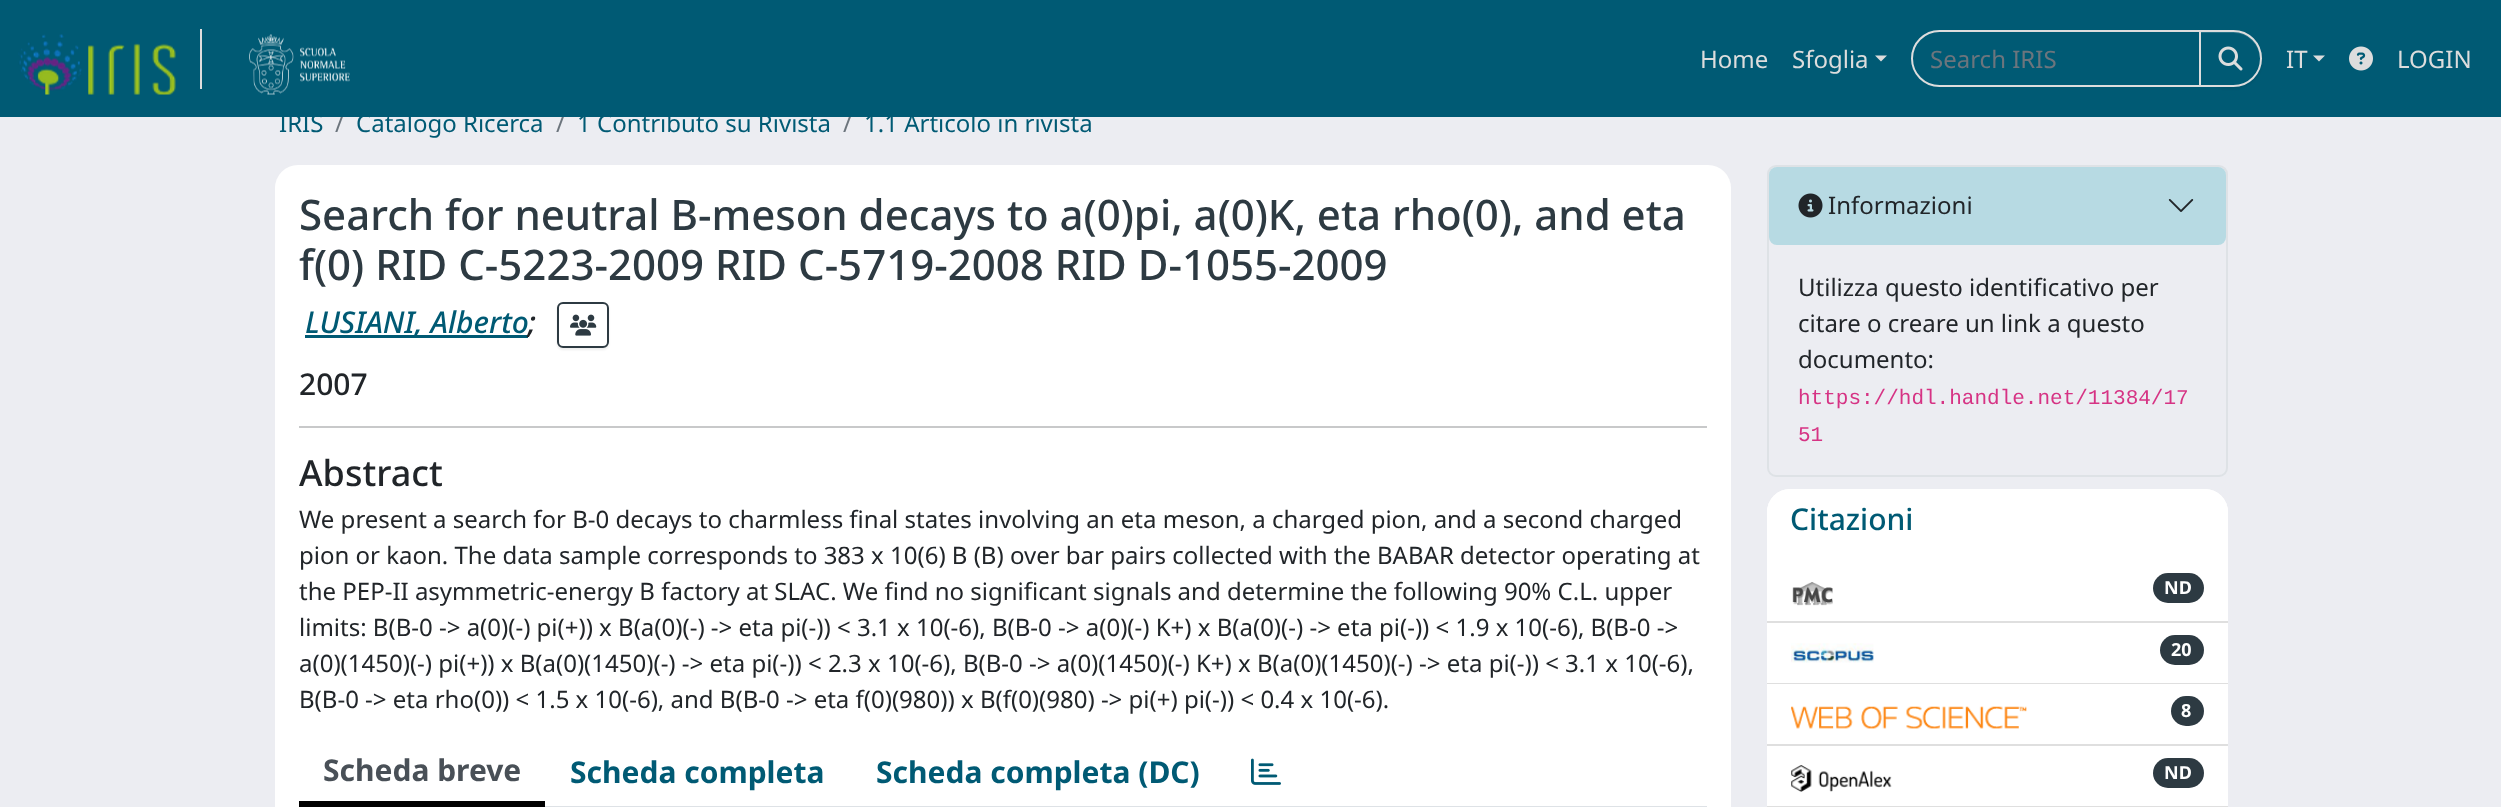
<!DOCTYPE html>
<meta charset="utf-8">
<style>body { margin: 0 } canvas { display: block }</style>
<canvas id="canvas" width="2501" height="807"></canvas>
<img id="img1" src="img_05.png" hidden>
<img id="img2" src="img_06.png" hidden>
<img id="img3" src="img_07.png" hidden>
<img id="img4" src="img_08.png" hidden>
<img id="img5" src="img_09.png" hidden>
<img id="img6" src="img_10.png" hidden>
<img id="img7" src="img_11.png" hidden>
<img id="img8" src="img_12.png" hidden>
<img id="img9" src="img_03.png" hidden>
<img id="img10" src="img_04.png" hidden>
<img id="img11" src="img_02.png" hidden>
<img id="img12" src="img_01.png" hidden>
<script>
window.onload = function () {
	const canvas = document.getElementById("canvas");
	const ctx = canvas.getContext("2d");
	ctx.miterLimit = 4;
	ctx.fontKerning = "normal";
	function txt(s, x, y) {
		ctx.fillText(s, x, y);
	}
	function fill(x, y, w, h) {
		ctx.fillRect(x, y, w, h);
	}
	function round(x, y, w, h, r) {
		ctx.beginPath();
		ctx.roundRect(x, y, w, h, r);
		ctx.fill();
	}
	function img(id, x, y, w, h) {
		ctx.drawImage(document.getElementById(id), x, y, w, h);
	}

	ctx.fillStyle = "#ECEDF2";
	fill(0, 0, 2501, 807);
	ctx.fillStyle = "#FFFFFF";
	round(275, 165, 1456, 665, 23);
	ctx.fillStyle = "#005A74";
	fill(305, 335, 223, 3);
	ctx.save();
	ctx.beginPath();
	ctx.moveTo(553, 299);
	ctx.lineTo(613, 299);
	ctx.lineTo(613, 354);
	ctx.lineTo(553, 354);
	ctx.closePath();
	ctx.moveTo(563, 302);
	ctx.lineTo(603, 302);
	ctx.bezierCurveTo(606.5, 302, 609, 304.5, 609, 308);
	ctx.lineTo(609, 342);
	ctx.bezierCurveTo(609, 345.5, 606.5, 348, 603, 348);
	ctx.lineTo(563, 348);
	ctx.bezierCurveTo(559.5, 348, 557, 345.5, 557, 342);
	ctx.lineTo(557, 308);
	ctx.bezierCurveTo(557, 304.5, 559.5, 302, 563, 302);
	ctx.closePath();
	ctx.clip("evenodd");
	ctx.fillStyle = "rgba(0, 0, 0, 0.07)";
	ctx.filter = "blur(1px)";
	ctx.beginPath();
	ctx.roundRect(557, 303, 52, 47, 6);
	ctx.fill();
	ctx.filter = "none";
	ctx.restore();
	ctx.beginPath();
	ctx.roundRect(558, 303, 50, 44, 5);
	ctx.strokeStyle = "#2D3A42";
	ctx.lineWidth = 2;
	ctx.stroke();
	img("img1", 570, 314, 27, 22);
	ctx.fillStyle = "#C8C9CA";
	fill(299, 426, 1408, 2);
	ctx.fillStyle = "#DEE2E6";
	fill(545, 806, 1162, 1);
	ctx.fillStyle = "#000000";
	fill(299, 801, 246, 6);
	img("img2", 1251, 758, 30, 27);
	ctx.beginPath();
	ctx.roundRect(1768, 166, 459, 310, 8);
	ctx.strokeStyle = "#DEE2E6";
	ctx.stroke();
	ctx.fillStyle = "rgba(23, 162, 184, 0.25)";
	round(1769, 167, 457, 78, 8);
	img("img3", 1798, 193, 25, 25);
	img("img4", 2168, 199, 26, 13);
	ctx.fillStyle = "#FFFFFF";
	round(1767, 489, 461, 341, 23);
	ctx.beginPath();
	ctx.roundRect(1767, 489, 461, 72, [23, 23, 0, 0]);
	ctx.fill();
	ctx.fillStyle = "#DFDFDF";
	fill(1767, 621, 461, 2);
	img("img5", 1792, 582, 41, 24);
	ctx.fillStyle = "#2D3A42";
	round(2153, 573, 51, 30, 15);
	ctx.fillStyle = "#DFDFDF";
	fill(1767, 683, 461, 1);
	img("img6", 1791, 643, 83, 20);
	ctx.fillStyle = "#2D3A42";
	round(2160, 635, 44, 30, 15);
	ctx.fillStyle = "#DFDFDF";
	fill(1767, 744, 461, 2);
	img("img7", 1791, 706, 236, 23);
	ctx.fillStyle = "#2D3A42";
	round(2171, 696, 33, 30, 15);
	ctx.fillStyle = "#DFDFDF";
	fill(1767, 806, 461, 1);
	img("img8", 1791, 765, 101, 27);
	ctx.fillStyle = "#2D3A42";
	round(2153, 758, 51, 30, 15);
	ctx.font = "24px Noto Sans";
	ctx.fillStyle = "#005A74";
	txt("IRIS", 279, 132);
	ctx.fillStyle = "#6C757D";
	txt("/", 335, 132);
	ctx.fillStyle = "#005A74";
	txt("Catalogo Ricerca", 356, 132);
	ctx.fillStyle = "#6C757D";
	txt("/", 556, 132);
	ctx.fillStyle = "#005A74";
	txt("1 Contributo su Rivista", 577, 132);
	ctx.fillStyle = "#6C757D";
	txt("/", 843, 132);
	ctx.fillStyle = "#005A74";
	fill(0, 0, 2501, 117);
	ctx.beginPath();
	ctx.roundRect(1912, 31, 288, 55, [27.5, 0, 0, 27.5]);
	ctx.strokeStyle = "#DDDDDD";
	ctx.stroke();
	ctx.fillStyle = "rgba(0, 0, 0, 0.07)";
	ctx.filter = "blur(1px)";
	ctx.beginPath();
	ctx.roundRect(2199, 32, 63, 57, 28.5);
	ctx.fill();
	ctx.filter = "none";
	ctx.fillStyle = "#005A74";
	ctx.beginPath();
	ctx.roundRect(2199, 30, 63, 57, [0, 28.5, 28.5, 0]);
	ctx.fill();
	ctx.fillStyle = "#267389";
	ctx.beginPath();
	ctx.moveTo(2201, 32);
	ctx.lineTo(2201, 33);
	ctx.lineTo(2234, 33);
	ctx.bezierCurveTo(2248, 33, 2260, 45, 2260, 60);
	ctx.bezierCurveTo(2260, 67, 2258, 72, 2254, 77);
	ctx.bezierCurveTo(2269, 60, 2258, 32, 2234, 32);
	ctx.closePath();
	ctx.fill();
	ctx.beginPath();
	ctx.roundRect(2200, 31, 61, 55, [0, 27.5, 27.5, 0]);
	ctx.stroke();
	img("img9", 2218, 46, 25, 25);
	ctx.fillStyle = "#DDDDDD";
	txt("LOGIN", 2397, 68);
	ctx.beginPath();
	ctx.moveTo(2313, 55.5);
	ctx.lineTo(2325, 55.5);
	ctx.lineTo(2319, 61.5);
	ctx.closePath();
	ctx.fill();
	txt("IT", 2286, 68);
	ctx.fillStyle = "#6C757D";
	txt("Search IRIS", 1930, 68);
	ctx.fillStyle = "#DDDDDD";
	ctx.beginPath();
	ctx.moveTo(1875, 55.5);
	ctx.lineTo(1887, 55.5);
	ctx.lineTo(1881, 61.5);
	ctx.closePath();
	ctx.fill();
	txt("Sfoglia", 1792, 68);
	img("img10", 2349, 46, 24, 25);
	txt("Home", 1700, 68);
	img("img11", 249, 34, 101, 61);
	img("img12", 18, 34, 158, 61);
	fill(200, 29, 2, 60);
	ctx.fillStyle = "#005A74";
	txt("1.1 Articolo in rivista", 864, 132);
	ctx.font = "500 42px Noto Sans";
	ctx.fillStyle = "#2D3A42";
	txt("Search for neutral B-meson decays to a(0)pi, a(0)K, eta rho(0), and eta", 299, 230);
	txt("f(0) RID C-5223-2009 RID C-5719-2008 RID D-1055-2009", 299, 280);
	ctx.font = "italic 500 30px Noto Sans";
	ctx.fillStyle = "#005A74";
	txt("LUSIANI, Alberto", 305, 333);
	ctx.fillStyle = "#212529";
	txt(";", 528, 333);
	ctx.font = "500 30px Noto Sans";
	txt("2007", 299, 395);
	ctx.font = "500 36px Noto Sans";
	txt("Abstract", 299, 486);
	ctx.font = "24px Noto Sans";
	txt("We present a search for B-0 decays to charmless final states involving an eta meson, a charged pion, and a second charged", 299, 528);
	txt("pion or kaon. The data sample corresponds to 383 x 10(6) B (B) over bar pairs collected with the BABAR detector operating at", 299, 564);
	txt("the PEP-II asymmetric-energy B factory at SLAC. We find no significant signals and determine the following 90% C.L. upper", 299, 600);
	txt("limits: B(B-0 -> a(0)(-) pi(+)) x B(a(0)(-) -> eta pi(-)) < 3.1 x 10(-6), B(B-0 -> a(0)(-) K+) x B(a(0)(-) -> eta pi(-)) < 1.9 x 10(-6), B(B-0 ->", 299, 636);
	txt("a(0)(1450)(-) pi(+)) x B(a(0)(1450)(-) -> eta pi(-)) < 2.3 x 10(-6), B(B-0 -> a(0)(1450)(-) K+) x B(a(0)(1450)(-) -> eta pi(-)) < 3.1 x 10(-6),", 299, 672);
	txt("B(B-0 -> eta rho(0)) < 1.5 x 10(-6), and B(B-0 -> eta f(0)(980)) x B(f(0)(980) -> pi(+) pi(-)) < 0.4 x 10(-6).", 299, 708);
	ctx.font = "bold 30px Noto Sans";
	ctx.fillStyle = "#495057";
	txt("Scheda breve", 323, 781);
	ctx.fillStyle = "#005A74";
	txt("Scheda completa", 570, 783);
	txt("Scheda completa (DC)", 876, 783);
	ctx.font = "24px Noto Sans";
	ctx.fillStyle = "#212529";
	txt("Informazioni", 1828, 214);
	txt("Utilizza questo identificativo per", 1798, 296);
	txt("citare o creare un link a questo", 1798, 332);
	txt("documento:", 1798, 368);
	ctx.font = "21px Liberation Mono";
	ctx.fillStyle = "#D63384";
	txt("https://hdl.handle.net/11384/17", 1798, 404);
	txt("51", 1798, 441);
	ctx.font = "500 30px Noto Sans";
	ctx.fillStyle = "#005A74";
	txt("Citazioni", 1790, 530);
	ctx.font = "bold 18px Noto Sans";
	ctx.fillStyle = "#FFFFFF";
	txt("ND", 2164, 594);
	txt("20", 2171, 656);
	txt("8", 2181, 717);
	txt("ND", 2164, 779);
};
</script>
